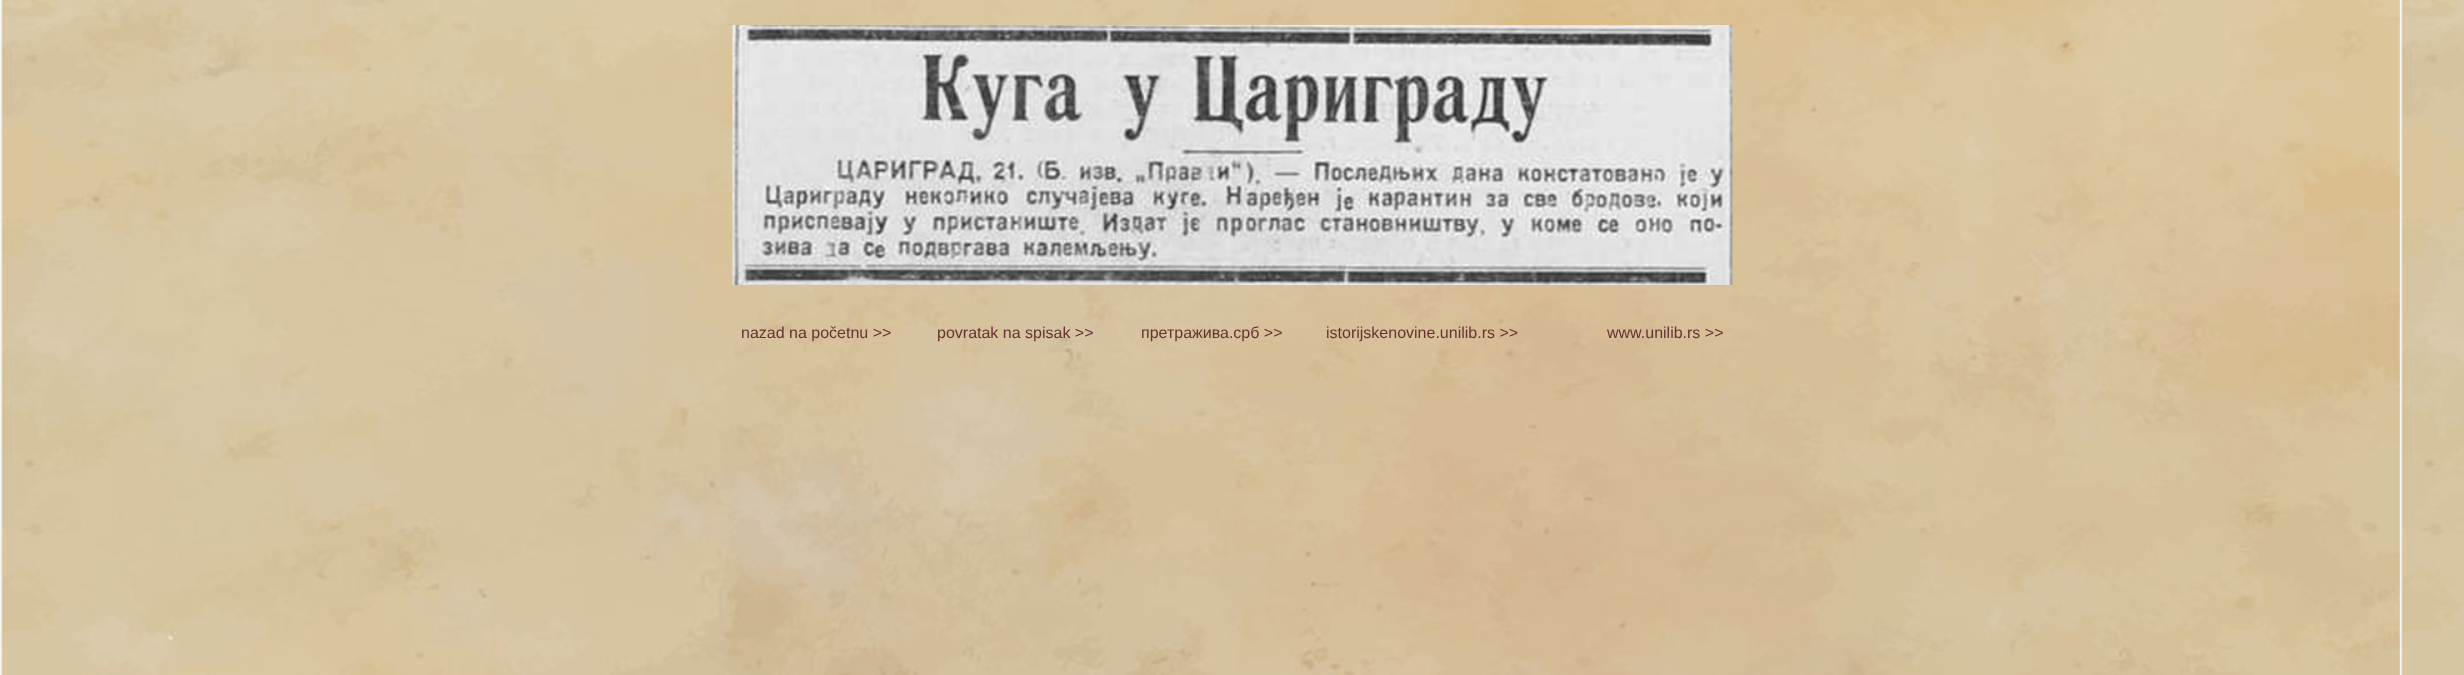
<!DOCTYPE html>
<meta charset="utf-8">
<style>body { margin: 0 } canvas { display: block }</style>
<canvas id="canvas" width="2464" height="675"></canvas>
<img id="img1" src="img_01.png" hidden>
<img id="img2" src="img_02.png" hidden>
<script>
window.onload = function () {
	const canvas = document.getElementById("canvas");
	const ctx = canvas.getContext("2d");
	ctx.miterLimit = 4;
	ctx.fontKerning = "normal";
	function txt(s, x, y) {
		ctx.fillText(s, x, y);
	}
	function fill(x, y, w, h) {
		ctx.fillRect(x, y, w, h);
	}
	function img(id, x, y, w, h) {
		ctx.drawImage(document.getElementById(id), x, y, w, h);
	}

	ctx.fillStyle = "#FFFFFF";
	fill(0, 0, 2464, 675);
	img("img1", 0, 0, 2464, 675);
	img("img2", 732, 25, 1001, 260);
	ctx.font = "16px Liberation Sans";
	ctx.fillStyle = "#663333";
	txt("nazad na početnu >>", 741, 338);
	txt("povratak na spisak >>", 937, 338);
	txt("претражива.срб >>", 1141, 338);
	txt("istorijskenovine.unilib.rs >>", 1326, 338);
	txt("www.unilib.rs >>", 1607, 338);
};
</script>
